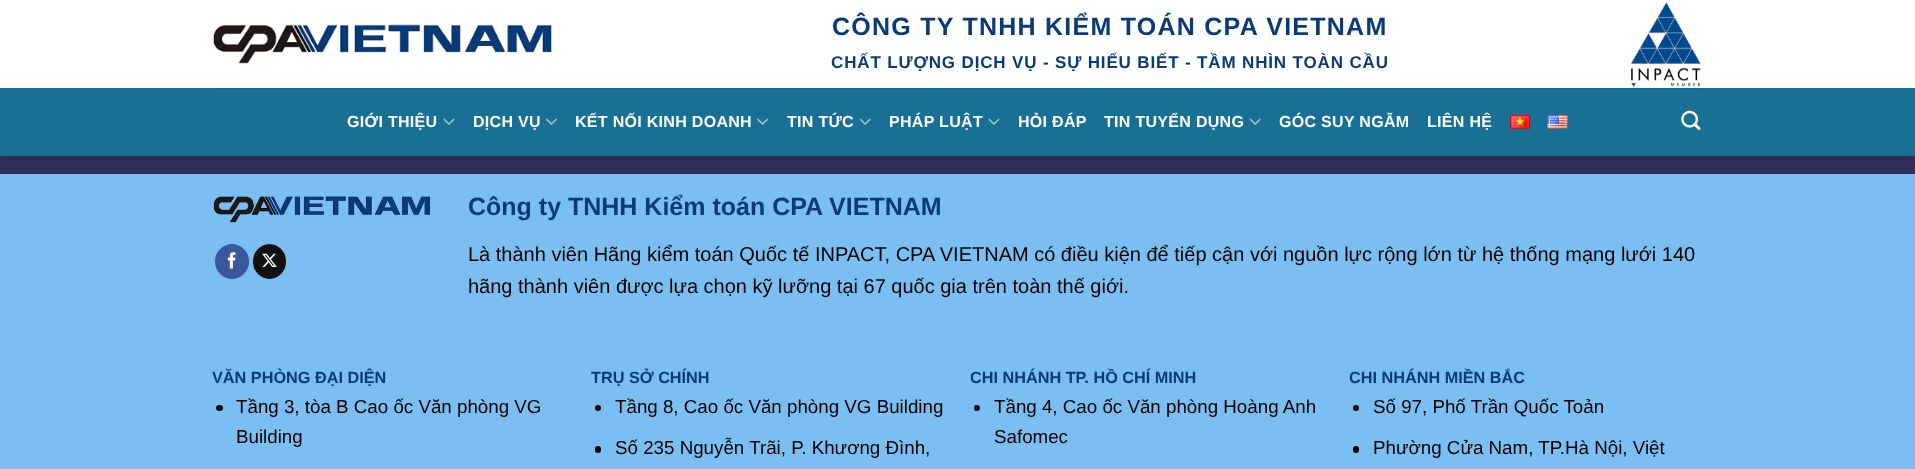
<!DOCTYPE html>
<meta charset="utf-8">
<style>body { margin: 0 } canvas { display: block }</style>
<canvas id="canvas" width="1915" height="469"></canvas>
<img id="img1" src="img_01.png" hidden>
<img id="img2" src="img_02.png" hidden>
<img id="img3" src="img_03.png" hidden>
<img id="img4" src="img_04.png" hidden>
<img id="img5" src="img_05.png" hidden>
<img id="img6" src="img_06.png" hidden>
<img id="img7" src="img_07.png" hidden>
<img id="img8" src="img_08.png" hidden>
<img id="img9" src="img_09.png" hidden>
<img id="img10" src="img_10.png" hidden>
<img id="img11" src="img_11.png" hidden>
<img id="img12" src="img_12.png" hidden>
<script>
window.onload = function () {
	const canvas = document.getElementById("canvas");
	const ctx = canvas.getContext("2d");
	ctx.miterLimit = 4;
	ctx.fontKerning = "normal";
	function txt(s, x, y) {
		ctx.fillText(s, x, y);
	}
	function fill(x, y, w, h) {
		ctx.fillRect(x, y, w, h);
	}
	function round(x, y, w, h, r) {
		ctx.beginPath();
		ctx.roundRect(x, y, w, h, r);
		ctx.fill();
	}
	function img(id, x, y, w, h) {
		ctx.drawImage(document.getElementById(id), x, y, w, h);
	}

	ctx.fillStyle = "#303156";
	fill(0, 0, 1915, 469);
	ctx.fillStyle = "#7BBEF1";
	fill(0, 174, 1915, 295);
	ctx.fillStyle = "rgba(0, 0, 0, 0.15)";
	ctx.filter = "blur(6px)";
	ctx.beginPath();
	ctx.rect(1, 1, 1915, 157);
	ctx.fill();
	ctx.filter = "none";
	ctx.fillStyle = "#FFFFFF";
	fill(0, 0, 1915, 88);
	img("img1", 213, 24, 339, 40);
	img("img2", 1630, 2, 71, 86);
	ctx.fillStyle = "#187094";
	fill(0, 88, 1915, 68);
	ctx.fillStyle = "#166585";
	fill(214, 88, 1487, 1);
	img("img3", 443, 118, 12, 7);
	img("img4", 545, 118, 12, 7);
	img("img5", 757, 118, 12, 7);
	img("img6", 859, 118, 12, 7);
	img("img3", 988, 118, 12, 7);
	img("img6", 1249, 118, 12, 7);
	img("img7", 1510, 115, 20, 14);
	img("img8", 1547, 115, 21, 14);
	img("img9", 1681, 110, 20, 20);
	img("img10", 213, 196, 217, 27);
	ctx.fillStyle = "#3A589D";
	ctx.beginPath();
	ctx.roundRect(215.5, 244.5, 33, 34, 16.5);
	ctx.fill();
	ctx.strokeStyle = "#3A589D";
	ctx.stroke();
	img("img11", 227, 252, 9, 17);
	ctx.fillStyle = "#111111";
	ctx.beginPath();
	ctx.roundRect(253.5, 244.5, 32, 34, 16);
	ctx.fill();
	ctx.strokeStyle = "#111111";
	ctx.stroke();
	img("img12", 262, 253, 15, 14);
	ctx.fillStyle = "#000000";
	round(216, 405, 7, 6, 3);
	ctx.beginPath();
	ctx.arc(598, 408, 3, 0, Math.PI * 2);
	ctx.fill();
	round(595, 446, 6, 7, 3);
	ctx.beginPath();
	ctx.arc(977, 408, 3, 0, Math.PI * 2);
	ctx.fill();
	ctx.beginPath();
	ctx.arc(1356, 408, 3, 0, Math.PI * 2);
	ctx.fill();
	round(1353, 446, 6, 7, 3);
	ctx.letterSpacing = "1.25px";
	ctx.font = "bold 25px Liberation Sans";
	ctx.fillStyle = "#083B77";
	txt("CÔNG TY TNHH KIỂM TOÁN CPA VIETNAM", 832, 35);
	ctx.letterSpacing = "0.85px";
	ctx.font = "bold 17px Liberation Sans";
	txt("CHẤT LƯỢNG DỊCH VỤ - SỰ HIỂU BIẾT - TẦM NHÌN TOÀN CẦU", 831, 68);
	ctx.letterSpacing = "0.3px";
	ctx.font = "bold 16px Liberation Sans";
	ctx.fillStyle = "#FFFFFF";
	txt("GIỚI THIỆU", 347, 127);
	txt("DỊCH VỤ", 473, 127);
	txt("KẾT NỐI KINH DOANH", 575, 127);
	txt("TIN TỨC", 787, 127);
	txt("PHÁP LUẬT", 889, 127);
	txt("HỎI ĐÁP", 1018, 127);
	txt("TIN TUYỂN DỤNG", 1104, 127);
	txt("GÓC SUY NGẪM", 1279, 127);
	txt("LIÊN HỆ", 1427, 127);
	ctx.letterSpacing = "0px";
	ctx.font = "bold 25px Liberation Sans";
	ctx.fillStyle = "#083B77";
	txt("Công ty TNHH Kiểm toán CPA VIETNAM", 468, 215);
	ctx.font = "20px Liberation Sans";
	ctx.fillStyle = "#000000";
	txt("Là thành viên Hãng kiểm toán Quốc tế INPACT, CPA VIETNAM có điều kiện để tiếp cận với nguồn lực rộng lớn từ hệ thống mạng lưới 140", 468, 261);
	txt("hãng thành viên được lựa chọn kỹ lưỡng tại 67 quốc gia trên toàn thế giới.", 468, 293);
	ctx.font = "bold 16.25px Liberation Sans";
	ctx.fillStyle = "#083B77";
	txt("VĂN PHÒNG ĐẠI DIỆN", 212, 383);
	ctx.font = "18.75px Liberation Sans";
	ctx.fillStyle = "#000000";
	txt("Tầng 3, tòa B Cao ốc Văn phòng VG", 236, 413);
	txt("Building", 236, 443);
	ctx.font = "bold 16.25px Liberation Sans";
	ctx.fillStyle = "#083B77";
	txt("TRỤ SỞ CHÍNH", 591, 383);
	ctx.font = "18.75px Liberation Sans";
	ctx.fillStyle = "#000000";
	txt("Tầng 8, Cao ốc Văn phòng VG Building", 615, 413);
	txt("Số 235 Nguyễn Trãi, P. Khương Đình,", 615, 454);
	ctx.font = "bold 16.25px Liberation Sans";
	ctx.fillStyle = "#083B77";
	txt("CHI NHÁNH TP. HỒ CHÍ MINH", 970, 383);
	ctx.font = "18.75px Liberation Sans";
	ctx.fillStyle = "#000000";
	txt("Tầng 4, Cao ốc Văn phòng Hoàng Anh", 994, 413);
	txt("Safomec", 994, 443);
	ctx.font = "bold 16.25px Liberation Sans";
	ctx.fillStyle = "#083B77";
	txt("CHI NHÁNH MIỀN BẮC", 1349, 383);
	ctx.font = "18.75px Liberation Sans";
	ctx.fillStyle = "#000000";
	txt("Số 97, Phố Trần Quốc Toản", 1373, 413);
	txt("Phường Cửa Nam, TP.Hà Nội, Việt", 1373, 454);
};
</script>
